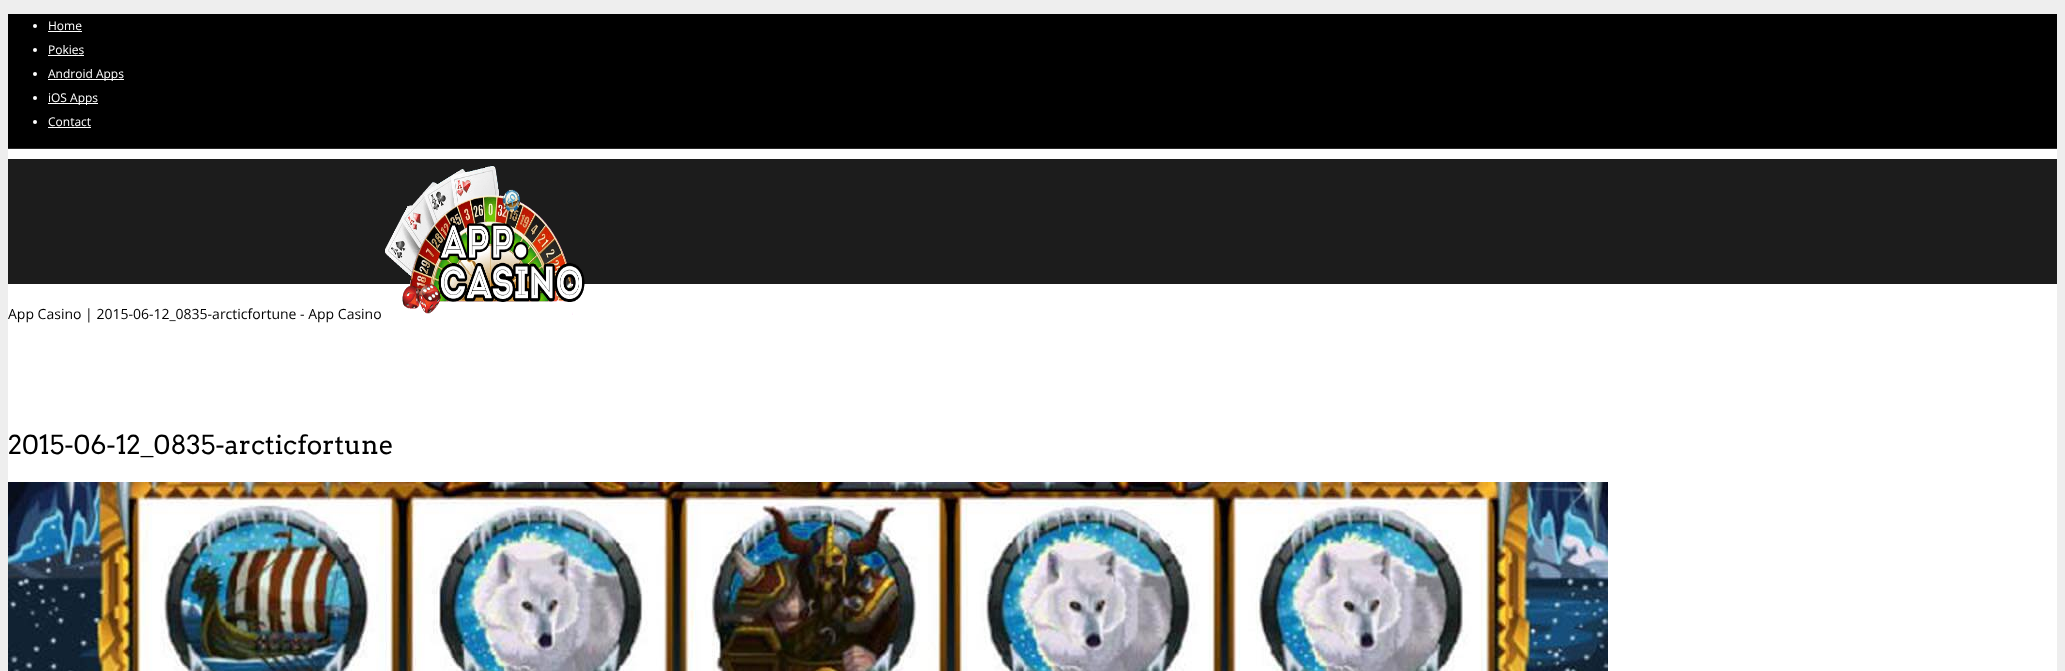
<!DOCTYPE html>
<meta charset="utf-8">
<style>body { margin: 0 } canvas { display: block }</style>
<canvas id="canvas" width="2065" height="671"></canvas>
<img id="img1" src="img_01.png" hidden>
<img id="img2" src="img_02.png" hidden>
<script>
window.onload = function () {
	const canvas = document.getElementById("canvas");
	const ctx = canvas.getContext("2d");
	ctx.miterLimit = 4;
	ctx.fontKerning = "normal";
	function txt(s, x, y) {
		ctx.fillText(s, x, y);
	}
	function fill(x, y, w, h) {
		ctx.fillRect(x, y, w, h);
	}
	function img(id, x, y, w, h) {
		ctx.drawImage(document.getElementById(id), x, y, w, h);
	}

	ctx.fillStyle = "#EEEEEE";
	fill(0, 0, 2065, 671);
	ctx.fillStyle = "#FFFFFF";
	fill(8, 149, 2049, 522);
	ctx.fillStyle = "#000000";
	fill(8, 14, 2049, 134);
	ctx.fillStyle = "#292929";
	fill(8, 148, 2049, 1);
	ctx.fillStyle = "#FFFFFF";
	ctx.beginPath();
	ctx.arc(35, 26, 2, 0, Math.PI * 2);
	ctx.fill();
	fill(48, 31, 34, 1);
	ctx.beginPath();
	ctx.arc(35, 50, 2, 0, Math.PI * 2);
	ctx.fill();
	fill(48, 55, 36, 1);
	ctx.beginPath();
	ctx.arc(35, 74, 2, 0, Math.PI * 2);
	ctx.fill();
	fill(48, 79, 76, 1);
	ctx.beginPath();
	ctx.arc(35, 98, 2, 0, Math.PI * 2);
	ctx.fill();
	fill(48, 103, 50, 1);
	ctx.beginPath();
	ctx.arc(35, 122, 2, 0, Math.PI * 2);
	ctx.fill();
	fill(48, 127, 43, 1);
	ctx.fillStyle = "#1C1C1C";
	fill(8, 159, 2049, 125);
	img("img1", 385, 165, 200, 150);
	img("img2", 8, 482, 1600, 189);
	ctx.font = "12px Open Sans";
	ctx.fillStyle = "#FFFFFF";
	txt("Home", 48, 30);
	txt("Pokies", 48, 54);
	txt("Android Apps", 48, 78);
	txt("iOS Apps", 48, 102);
	txt("Contact", 48, 126);
	ctx.font = "14px Open Sans";
	ctx.fillStyle = "#000000";
	txt("App Casino | 2015-06-12_0835-arcticfortune - App Casino", 8, 319);
	ctx.font = "26px Arvo";
	txt("2015-06-12_0835-arcticfortune", 8, 454);
};
</script>
